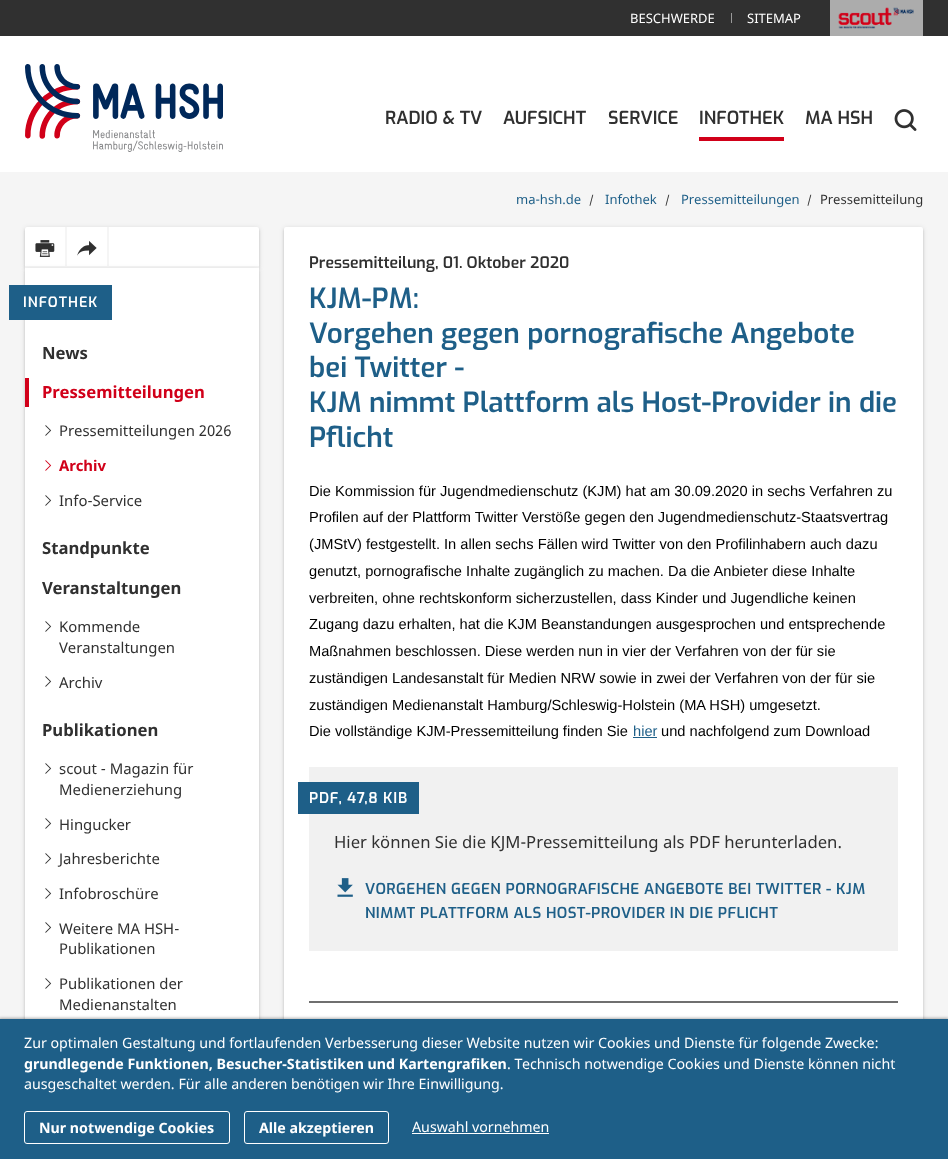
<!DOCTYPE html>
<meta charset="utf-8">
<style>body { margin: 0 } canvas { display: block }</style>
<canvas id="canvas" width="948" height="1159"></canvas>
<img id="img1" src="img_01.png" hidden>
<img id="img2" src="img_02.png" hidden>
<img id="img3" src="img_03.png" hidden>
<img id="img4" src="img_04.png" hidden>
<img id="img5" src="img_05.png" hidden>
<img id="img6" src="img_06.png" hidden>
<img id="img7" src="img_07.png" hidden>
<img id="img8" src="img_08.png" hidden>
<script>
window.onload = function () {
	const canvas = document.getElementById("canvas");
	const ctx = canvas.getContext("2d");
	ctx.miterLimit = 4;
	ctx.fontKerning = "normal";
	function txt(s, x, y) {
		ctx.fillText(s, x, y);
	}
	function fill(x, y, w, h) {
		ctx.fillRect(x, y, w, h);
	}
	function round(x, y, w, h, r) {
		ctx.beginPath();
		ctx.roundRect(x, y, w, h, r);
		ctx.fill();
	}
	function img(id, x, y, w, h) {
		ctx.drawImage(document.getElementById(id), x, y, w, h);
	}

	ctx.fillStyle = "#F5F5F5";
	fill(0, 0, 948, 1159);
	ctx.fillStyle = "#FFFFFF";
	fill(0, 36, 948, 136);
	ctx.fillStyle = "#303030";
	fill(0, 0, 948, 36);
	ctx.fillStyle = "#999999";
	fill(731, 13, 1, 10);
	img("img1", 830, 0, 93, 36);
	img("img2", 25, 64, 198, 88);
	ctx.fillStyle = "#D10019";
	fill(699, 137, 85, 4);
	img("img3", 894, 109, 23, 22);
	ctx.fillStyle = "rgba(0, 0, 0, 0.12)";
	ctx.filter = "blur(2.5px)";
	ctx.beginPath();
	ctx.roundRect(25, 228, 234, 41, 2);
	ctx.fill();
	ctx.filter = "none";
	ctx.fillStyle = "rgba(0, 0, 0, 0.14)";
	ctx.filter = "blur(1px)";
	ctx.beginPath();
	ctx.roundRect(25, 229, 234, 41, 2);
	ctx.fill();
	ctx.filter = "none";
	ctx.fillStyle = "#FFFFFF";
	ctx.beginPath();
	ctx.roundRect(25, 227, 234, 41, [2, 2, 0, 0]);
	ctx.fill();
	ctx.fillStyle = "#F5F5F5";
	fill(65, 227, 2, 41);
	img("img4", 35, 240, 20, 17);
	fill(107, 227, 2, 41);
	img("img5", 77, 241, 20, 15);
	fill(25, 266, 234, 2);
	ctx.fillStyle = "rgba(0, 0, 0, 0.12)";
	ctx.filter = "blur(2.5px)";
	ctx.beginPath();
	ctx.roundRect(25, 269, 234, 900, 2);
	ctx.fill();
	ctx.filter = "none";
	ctx.fillStyle = "rgba(0, 0, 0, 0.14)";
	ctx.filter = "blur(1px)";
	ctx.beginPath();
	ctx.roundRect(25, 270, 234, 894, 2);
	ctx.fill();
	ctx.filter = "none";
	ctx.fillStyle = "#FFFFFF";
	fill(25, 268, 234, 751);
	ctx.fillStyle = "#1E5F88";
	fill(9, 285, 103, 35);
	ctx.fillStyle = "#D10019";
	fill(25, 378, 4, 29);
	img("img6", 45, 425, 7, 11);
	img("img7", 45, 460, 7, 11);
	img("img6", 45, 495, 7, 11);
	img("img6", 45, 621, 7, 11);
	img("img6", 45, 676, 7, 11);
	img("img6", 45, 763, 7, 11);
	img("img6", 45, 818, 7, 11);
	img("img6", 45, 853, 7, 11);
	img("img6", 45, 888, 7, 11);
	img("img6", 45, 922, 7, 11);
	img("img6", 45, 978, 7, 11);
	ctx.fillStyle = "rgba(0, 0, 0, 0.12)";
	ctx.filter = "blur(2.5px)";
	ctx.beginPath();
	ctx.roundRect(284, 228, 639, 847, 2);
	ctx.fill();
	ctx.filter = "none";
	ctx.fillStyle = "rgba(0, 0, 0, 0.14)";
	ctx.filter = "blur(1px)";
	ctx.beginPath();
	ctx.roundRect(284, 229, 639, 847, 2);
	ctx.fill();
	ctx.filter = "none";
	ctx.fillStyle = "#FFFFFF";
	round(284, 227, 639, 847, 2);
	ctx.fillStyle = "#1E5F88";
	fill(633, 737, 24, 1);
	ctx.fillStyle = "#F1F1F1";
	fill(309, 767, 589, 184);
	ctx.fillStyle = "#1E5F88";
	fill(298, 782, 121, 32);
	img("img8", 337, 878, 16, 19);
	ctx.fillStyle = "#6F6F6F";
	fill(309, 1001, 589, 2);
	ctx.fillStyle = "rgba(0, 0, 0, 0.3)";
	ctx.filter = "blur(1.5px)";
	ctx.beginPath();
	ctx.rect(-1, 1018, 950, 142);
	ctx.fill();
	ctx.filter = "none";
	ctx.fillStyle = "#1E5F88";
	fill(0, 1019, 948, 140);
	ctx.beginPath();
	ctx.roundRect(24.5, 1111.5, 205, 32, 2.5);
	ctx.strokeStyle = "#FFFFFF";
	ctx.stroke();
	ctx.beginPath();
	ctx.roundRect(244.5, 1111.5, 144, 32, 2.5);
	ctx.stroke();
	ctx.fillStyle = "#FFFFFF";
	fill(412, 1133, 137, 1);
	ctx.font = "13px Noto Sans";
	txt("BESCHWERDE", 630, 23);
	txt("SITEMAP", 747, 23);
	ctx.font = "600 18px Exo";
	ctx.fillStyle = "#303030";
	txt("RADIO & TV", 385, 124);
	txt("AUFSICHT", 503, 124);
	txt("SERVICE", 608, 124);
	txt("INFOTHEK", 699, 124);
	txt("MA HSH", 805, 124);
	ctx.font = "13px Noto Sans";
	ctx.fillStyle = "#1E5F88";
	txt("ma-hsh.de", 516, 204);
	ctx.font = "11px Noto Sans";
	ctx.fillStyle = "#303030";
	txt("/", 589, 204);
	ctx.font = "13px Noto Sans";
	ctx.fillStyle = "#1E5F88";
	txt("Infothek", 605, 204);
	ctx.font = "11px Noto Sans";
	ctx.fillStyle = "#303030";
	txt("/", 665, 204);
	ctx.font = "13px Noto Sans";
	ctx.fillStyle = "#1E5F88";
	txt("Pressemitteilungen", 681, 204);
	ctx.font = "11px Noto Sans";
	ctx.fillStyle = "#303030";
	txt("/", 807, 204);
	ctx.font = "13px Noto Sans";
	txt("Pressemitteilung", 820, 204);
	ctx.letterSpacing = "1px";
	ctx.font = "600 14.25px Exo";
	ctx.fillStyle = "#FFFFFF";
	txt("INFOTHEK", 23, 307);
	ctx.letterSpacing = "0px";
	ctx.font = "bold 16.7px Noto Sans";
	ctx.fillStyle = "#303030";
	txt("News", 42, 359);
	ctx.fillStyle = "#D10019";
	txt("Pressemitteilungen", 42, 398);
	ctx.font = "14.9px Noto Sans";
	ctx.fillStyle = "#303030";
	txt("Pressemitteilungen 2026", 59, 436);
	ctx.font = "bold 14.9px Noto Sans";
	ctx.fillStyle = "#D10019";
	txt("Archiv", 59, 471);
	ctx.font = "14.9px Noto Sans";
	ctx.fillStyle = "#303030";
	txt("Info-Service", 59, 506);
	ctx.font = "bold 16.7px Noto Sans";
	txt("Standpunkte", 42, 554);
	txt("Veranstaltungen", 42, 594);
	ctx.font = "14.9px Noto Sans";
	txt("Kommende", 59, 632);
	txt("Veranstaltungen", 59, 653);
	txt("Archiv", 59, 688);
	ctx.font = "bold 16.7px Noto Sans";
	txt("Publikationen", 42, 736);
	ctx.font = "14.9px Noto Sans";
	txt("scout - Magazin für", 59, 774);
	txt("Medienerziehung", 59, 795);
	txt("Hingucker", 59, 830);
	txt("Jahresberichte", 59, 864);
	txt("Infobroschüre", 59, 899);
	txt("Weitere MA HSH-", 59, 934);
	txt("Publikationen", 59, 954);
	txt("Publikationen der", 59, 989);
	txt("Medienanstalten", 59, 1010);
	ctx.font = "600 15.9px Exo";
	txt("Pressemitteilung, 01. Oktober 2020", 309, 268);
	ctx.font = "600 27.85px Exo";
	ctx.fillStyle = "#1E5F88";
	txt("KJM-PM:", 309, 308);
	txt("Vorgehen gegen pornografische Angebote", 309, 343);
	txt("bei Twitter -", 309, 377);
	txt("KJM nimmt Plattform als Host-Provider in die", 309, 412);
	txt("Pflicht", 309, 447);
	ctx.font = "14.65px Liberation Sans";
	ctx.fillStyle = "#000000";
	txt("Die Kommission für Jugendmedienschutz (KJM) hat am 30.09.2020 in sechs Verfahren zu", 309, 496);
	txt("Profilen auf der Plattform Twitter Verstöße gegen den Jugendmedienschutz-Staatsvertrag", 309, 522);
	txt("(JMStV) festgestellt. In allen sechs Fällen wird Twitter von den Profilinhabern auch dazu", 309, 549);
	txt("genutzt, pornografische Inhalte zugänglich zu machen. Da die Anbieter diese Inhalte", 309, 576);
	txt("verbreiten, ohne rechtskonform sicherzustellen, dass Kinder und Jugendliche keinen", 309, 603);
	txt("Zugang dazu erhalten, hat die KJM Beanstandungen ausgesprochen und entsprechende", 309, 629);
	txt("Maßnahmen beschlossen. Diese werden nun in vier der Verfahren von der für sie", 309, 656);
	txt("zuständigen Landesanstalt für Medien NRW sowie in zwei der Verfahren von der für sie", 309, 683);
	txt("zuständigen Medienanstalt Hamburg/Schleswig-Holstein (MA HSH) umgesetzt.", 309, 710);
	txt("Die vollständige KJM-Pressemitteilung finden Sie", 309, 736);
	ctx.fillStyle = "#1E5F88";
	txt("hier", 633, 736);
	ctx.fillStyle = "#000000";
	txt("und nachfolgend zum Download", 661, 736);
	ctx.letterSpacing = "0.75px";
	ctx.font = "600 14.9px Exo";
	ctx.fillStyle = "#FFFFFF";
	txt("PDF, 47,8 KIB", 309, 803);
	ctx.letterSpacing = "0px";
	ctx.font = "16.7px Noto Sans";
	ctx.fillStyle = "#303030";
	txt("Hier können Sie die KJM-Pressemitteilung als PDF herunterladen.", 334, 848);
	ctx.letterSpacing = "0.38px";
	ctx.font = "600 15.05px Exo";
	ctx.fillStyle = "#1E5F88";
	txt("VORGEHEN GEGEN PORNOGRAFISCHE ANGEBOTE BEI TWITTER - KJM", 365, 894);
	txt("NIMMT PLATTFORM ALS HOST-PROVIDER IN DIE PFLICHT", 365, 918);
	ctx.letterSpacing = "0px";
	ctx.font = "14.22px Noto Sans";
	ctx.fillStyle = "#FFFFFF";
	txt("Zur optimalen Gestaltung und fortlaufenden Verbesserung dieser Website nutzen wir Cookies und Dienste für folgende Zwecke:", 24, 1048);
	ctx.font = "bold 14.22px Noto Sans";
	txt("grundlegende Funktionen, Besucher-Statistiken und Kartengrafiken", 24, 1069);
	ctx.font = "14.22px Noto Sans";
	txt(". Technisch notwendige Cookies und Dienste können nicht", 507, 1069);
	txt("ausgeschaltet werden. Für alle anderen benötigen wir Ihre Einwilligung.", 24, 1089);
	ctx.font = "bold 14.22px Noto Sans";
	txt("Nur notwendige Cookies", 39, 1133);
	txt("Alle akzeptieren", 259, 1133);
	ctx.font = "14.22px Noto Sans";
	txt("Auswahl vornehmen", 412, 1132);
};
</script>
